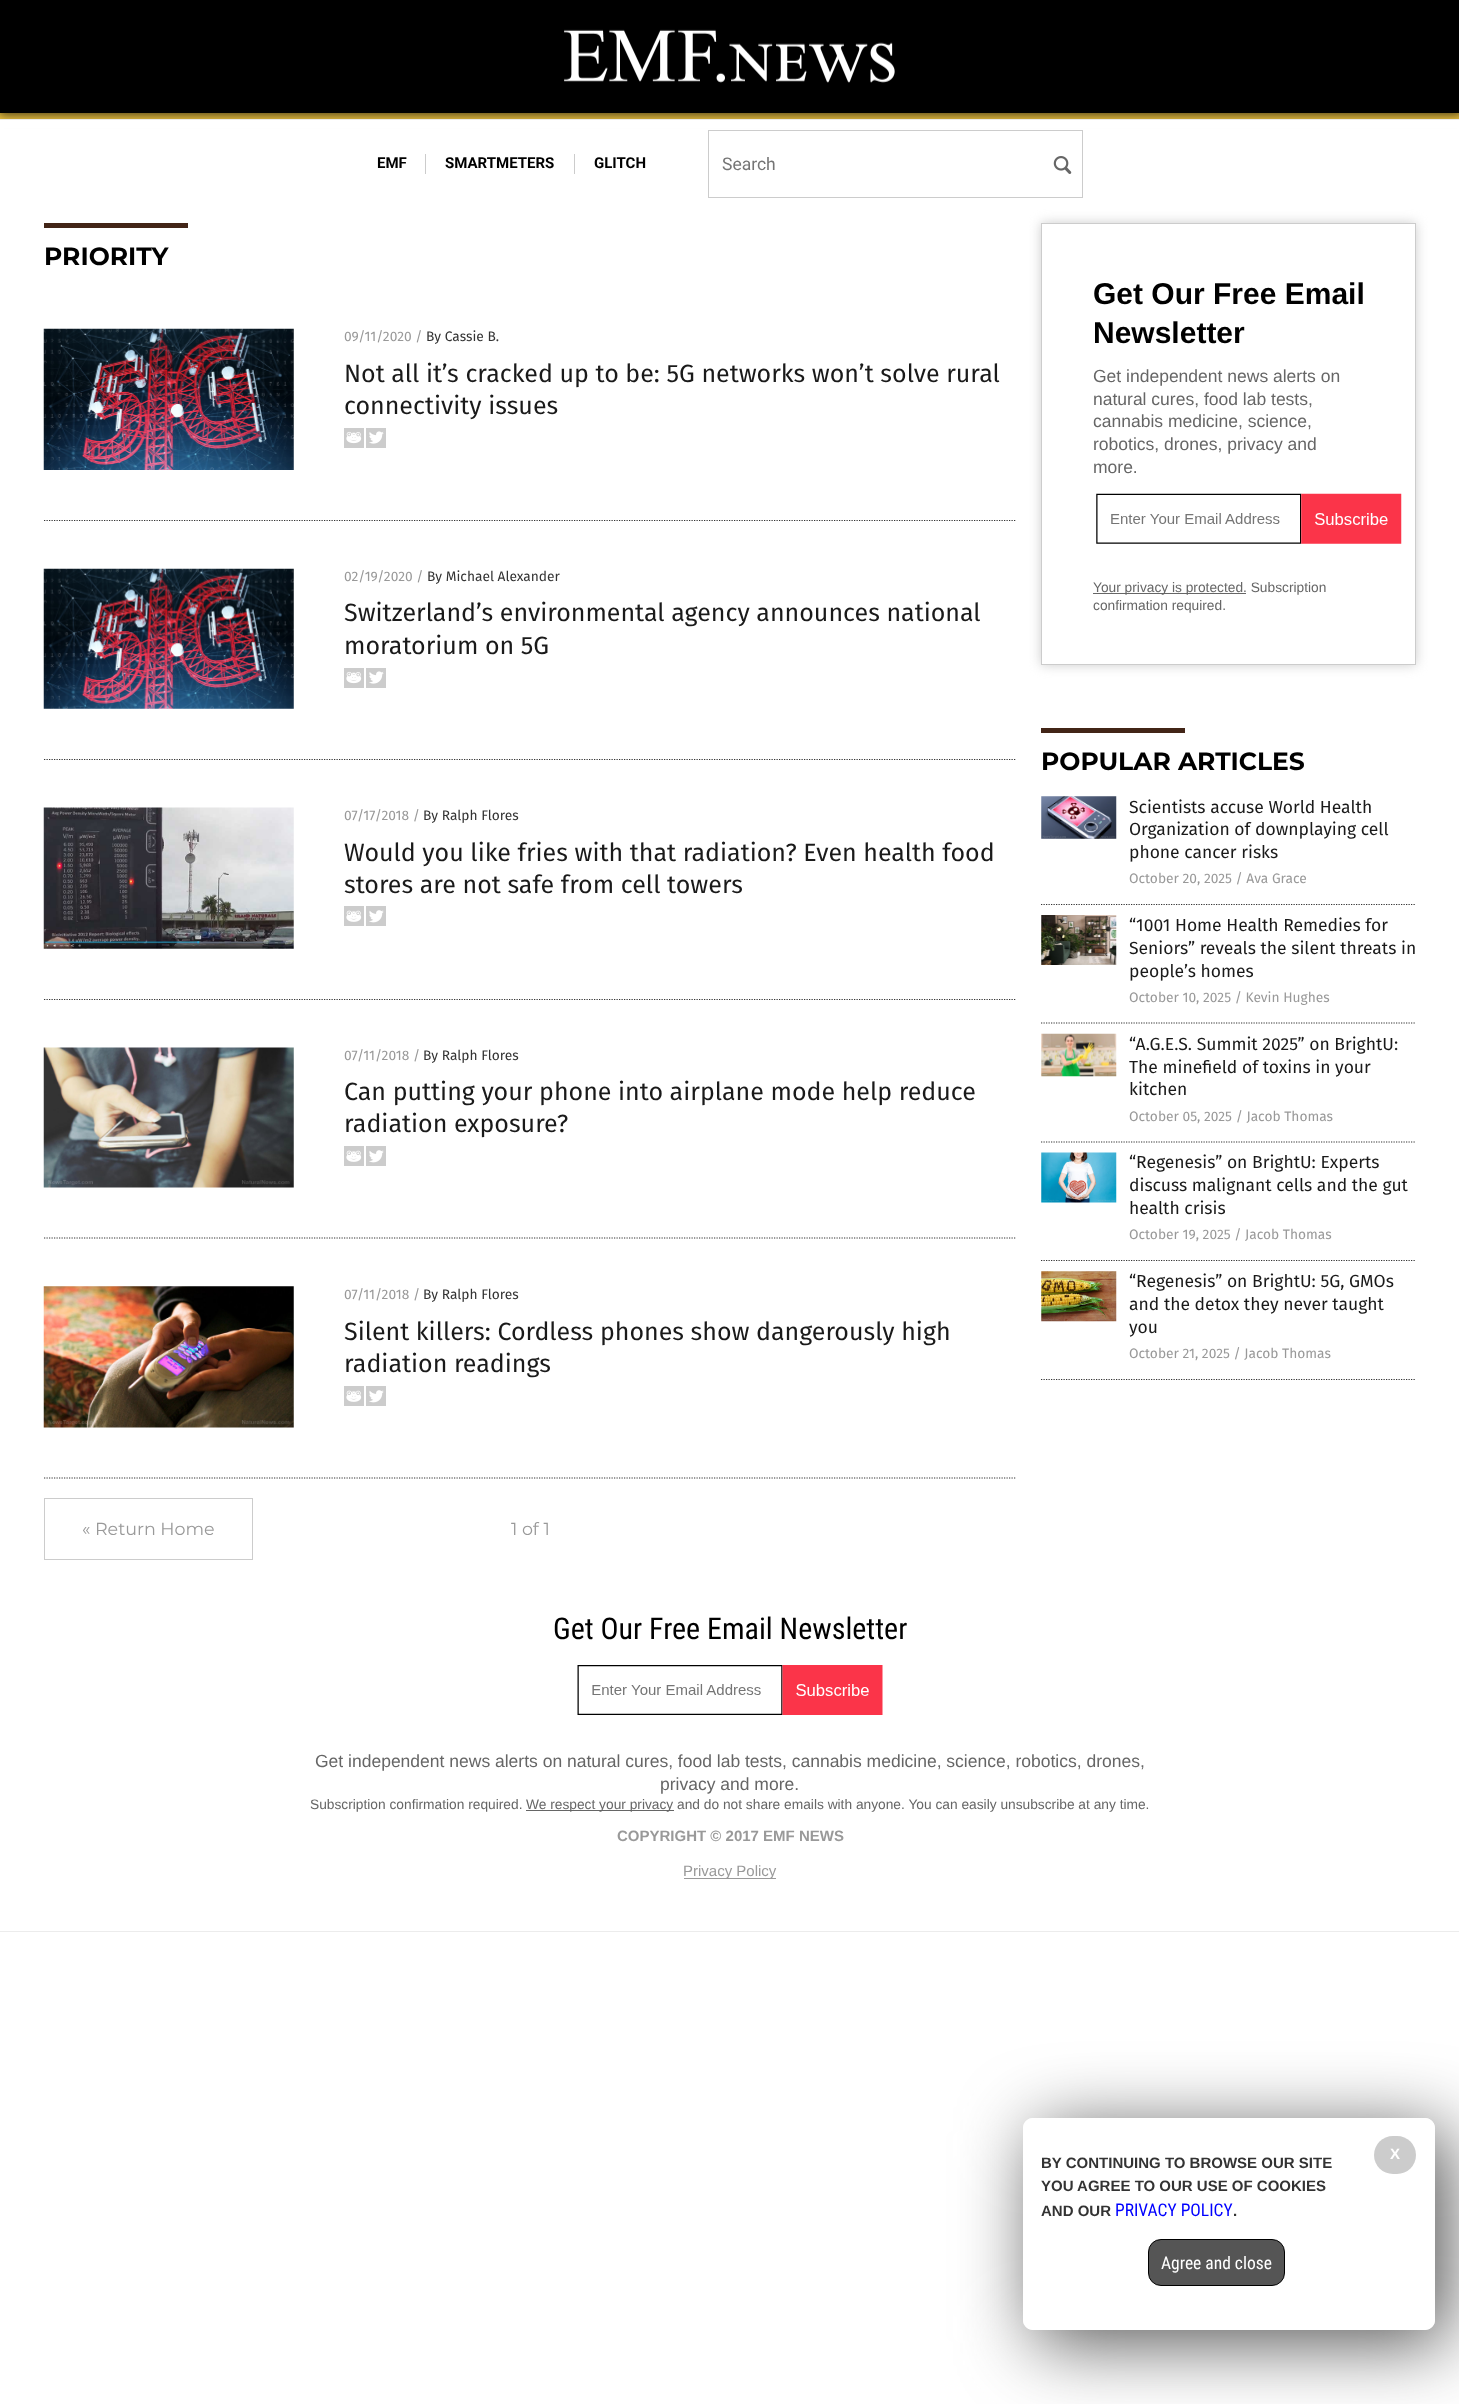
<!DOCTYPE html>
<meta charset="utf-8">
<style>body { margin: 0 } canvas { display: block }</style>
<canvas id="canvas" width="1459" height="2404"></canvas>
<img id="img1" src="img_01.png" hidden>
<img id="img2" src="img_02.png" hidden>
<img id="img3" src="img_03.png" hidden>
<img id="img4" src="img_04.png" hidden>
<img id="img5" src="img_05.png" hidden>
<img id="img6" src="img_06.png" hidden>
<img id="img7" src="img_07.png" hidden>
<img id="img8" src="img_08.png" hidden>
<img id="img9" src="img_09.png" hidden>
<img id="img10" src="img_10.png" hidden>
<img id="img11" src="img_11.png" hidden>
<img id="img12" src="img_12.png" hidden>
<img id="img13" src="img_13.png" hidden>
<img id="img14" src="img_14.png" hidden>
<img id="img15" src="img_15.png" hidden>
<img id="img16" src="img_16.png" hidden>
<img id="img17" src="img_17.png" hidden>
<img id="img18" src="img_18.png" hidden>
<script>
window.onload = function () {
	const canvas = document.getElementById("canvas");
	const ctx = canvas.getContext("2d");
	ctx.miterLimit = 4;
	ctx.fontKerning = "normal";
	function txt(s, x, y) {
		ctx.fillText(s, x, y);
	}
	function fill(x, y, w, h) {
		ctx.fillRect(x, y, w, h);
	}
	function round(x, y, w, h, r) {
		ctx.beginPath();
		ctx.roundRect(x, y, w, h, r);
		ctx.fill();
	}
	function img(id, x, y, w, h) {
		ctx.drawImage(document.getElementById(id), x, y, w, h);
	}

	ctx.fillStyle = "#FFFFFF";
	fill(0, 0, 1459, 2404);
	ctx.fillStyle = "#F5CA45";
	fill(0, 113, 1459, 6);
	ctx.fillStyle = "rgba(0, 0, 0, 0.75)";
	ctx.filter = "blur(6px)";
	ctx.beginPath();
	ctx.rect(-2, -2, 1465, 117);
	ctx.fill();
	ctx.filter = "none";
	ctx.fillStyle = "#000000";
	fill(0, 0, 1459, 113);
	img("img1", 564, 29, 331, 54);
	ctx.fillStyle = "#FFFFFF";
	fill(0, 120, 1459, 8);
	ctx.fillStyle = "#ECECEC";
	fill(0, 119, 1459, 1);
	fill(0, 1931, 1459, 1);
	ctx.fillStyle = "#CCCCCC";
	fill(425, 154, 1, 20);
	fill(574, 154, 1, 20);
	ctx.strokeStyle = "#CCCCCC";
	ctx.strokeRect(708.5, 130.5, 374, 67);
	img("img2", 1053, 156, 19, 18);
	ctx.fillStyle = "#422517";
	fill(44, 223, 144, 5);
	ctx.beginPath();
	ctx.moveTo(44, 520.5);
	ctx.lineTo(1016, 520.5);
	ctx.strokeStyle = "#343434";
	ctx.lineWidth = 1.2;
	ctx.setLineDash([1.25, 1.25]);
	ctx.stroke();
	img("img3", 43, 328, 251, 142);
	img("img4", 344, 428, 20, 20);
	img("img5", 366, 428, 20, 20);
	ctx.beginPath();
	ctx.moveTo(44, 759.5);
	ctx.lineTo(1016, 759.5);
	ctx.stroke();
	img("img6", 43, 568, 251, 141);
	img("img4", 344, 668, 20, 20);
	img("img5", 366, 668, 20, 20);
	ctx.beginPath();
	ctx.moveTo(44, 999.5);
	ctx.lineTo(1016, 999.5);
	ctx.stroke();
	img("img7", 43, 807, 251, 142);
	img("img8", 344, 906, 20, 20);
	img("img9", 366, 906, 20, 20);
	ctx.beginPath();
	ctx.moveTo(44, 1238);
	ctx.lineTo(1016, 1238);
	ctx.stroke();
	img("img10", 43, 1047, 251, 141);
	img("img8", 344, 1146, 20, 20);
	img("img9", 366, 1146, 20, 20);
	ctx.beginPath();
	ctx.moveTo(44, 1478);
	ctx.lineTo(1016, 1478);
	ctx.stroke();
	img("img11", 43, 1286, 251, 142);
	img("img8", 344, 1386, 20, 20);
	img("img9", 366, 1386, 20, 20);
	ctx.strokeStyle = "#CCCCCC";
	ctx.lineWidth = 1;
	ctx.setLineDash([]);
	ctx.strokeRect(44.5, 1498.5, 208, 61);
	ctx.save();
	ctx.beginPath();
	ctx.moveTo(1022, 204);
	ctx.lineTo(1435, 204);
	ctx.lineTo(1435, 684);
	ctx.lineTo(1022, 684);
	ctx.closePath();
	ctx.moveTo(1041, 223);
	ctx.lineTo(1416, 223);
	ctx.lineTo(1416, 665);
	ctx.lineTo(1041, 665);
	ctx.closePath();
	ctx.clip("evenodd");
	ctx.fillStyle = "#CCCCCC";
	ctx.filter = "blur(6px)";
	ctx.beginPath();
	ctx.rect(1041, 223, 375, 442);
	ctx.fill();
	ctx.filter = "none";
	ctx.restore();
	ctx.strokeRect(1041.5, 223.5, 374, 441);
	img("img12", 1096, 493, 306, 51);
	ctx.fillStyle = "#666666";
	fill(1093, 593, 153, 1);
	ctx.fillStyle = "#422517";
	fill(1041, 728, 144, 5);
	ctx.beginPath();
	ctx.moveTo(1041, 904.5);
	ctx.lineTo(1416, 904.5);
	ctx.strokeStyle = "#343434";
	ctx.lineWidth = 1.2;
	ctx.setLineDash([1.25, 1.25]);
	ctx.stroke();
	img("img13", 1041, 796, 76, 43);
	ctx.beginPath();
	ctx.moveTo(1041, 1023);
	ctx.lineTo(1416, 1023);
	ctx.stroke();
	img("img14", 1041, 915, 76, 50);
	ctx.beginPath();
	ctx.moveTo(1041, 1142);
	ctx.lineTo(1416, 1142);
	ctx.stroke();
	img("img15", 1041, 1033, 76, 44);
	ctx.beginPath();
	ctx.moveTo(1041, 1260.5);
	ctx.lineTo(1416, 1260.5);
	ctx.stroke();
	img("img16", 1041, 1152, 76, 51);
	ctx.beginPath();
	ctx.moveTo(1041, 1379.5);
	ctx.lineTo(1416, 1379.5);
	ctx.stroke();
	img("img17", 1041, 1271, 76, 51);
	img("img18", 577, 1665, 306, 50);
	ctx.fillStyle = "#666666";
	fill(526, 1810, 148, 1);
	ctx.fillStyle = "#999999";
	fill(684, 1878, 92, 1);
	ctx.save();
	ctx.beginPath();
	ctx.moveTo(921, 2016);
	ctx.lineTo(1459, 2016);
	ctx.lineTo(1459, 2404);
	ctx.lineTo(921, 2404);
	ctx.closePath();
	ctx.moveTo(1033, 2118);
	ctx.lineTo(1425, 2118);
	ctx.bezierCurveTo(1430.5, 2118, 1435, 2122.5, 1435, 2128);
	ctx.lineTo(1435, 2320);
	ctx.bezierCurveTo(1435, 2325.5, 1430.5, 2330, 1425, 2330);
	ctx.lineTo(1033, 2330);
	ctx.bezierCurveTo(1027.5, 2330, 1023, 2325.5, 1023, 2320);
	ctx.lineTo(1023, 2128);
	ctx.bezierCurveTo(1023, 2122.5, 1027.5, 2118, 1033, 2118);
	ctx.closePath();
	ctx.clip("evenodd");
	ctx.fillStyle = "#555555";
	ctx.filter = "blur(37.5px)";
	ctx.beginPath();
	ctx.roundRect(1035, 2130, 413, 213, 10);
	ctx.fill();
	ctx.filter = "none";
	ctx.restore();
	ctx.fillStyle = "rgba(255, 255, 255, 0.9)";
	round(1023, 2118, 412, 212, 10);
	ctx.fillStyle = "#CCCCCC";
	round(1374, 2136, 42, 38, 19);
	ctx.fillStyle = "#555555";
	ctx.beginPath();
	ctx.roundRect(1148.5, 2239.5, 136, 46, 12.5);
	ctx.fill();
	ctx.strokeStyle = "#000000";
	ctx.lineWidth = 1;
	ctx.setLineDash([]);
	ctx.stroke();
	ctx.font = "bold 15px Roboto";
	ctx.fillStyle = "#000000";
	txt("EMF", 377, 168);
	txt("SMARTMETERS", 445, 168);
	txt("GLITCH", 594, 168);
	ctx.font = "17.5px Roboto";
	ctx.fillStyle = "#757575";
	txt("Search", 722, 170);
	ctx.font = "bold 25px Montserrat";
	ctx.fillStyle = "#000000";
	txt("PRIORITY", 44, 265);
	ctx.font = "13.75px Fira Sans";
	ctx.fillStyle = "#999999";
	txt("09/11/2020 /", 344, 341);
	ctx.fillStyle = "#333333";
	txt("By Cassie B.", 426, 341);
	ctx.font = "25px Fira Sans";
	ctx.fillStyle = "#1A1A1A";
	txt("Not all it’s cracked up to be: 5G networks won’t solve rural", 344, 382);
	txt("connectivity issues", 344, 414);
	ctx.font = "13.75px Fira Sans";
	ctx.fillStyle = "#999999";
	txt("02/19/2020 /", 344, 581);
	ctx.fillStyle = "#333333";
	txt("By Michael Alexander", 427, 581);
	ctx.font = "25px Fira Sans";
	ctx.fillStyle = "#1A1A1A";
	txt("Switzerland’s environmental agency announces national", 344, 621);
	txt("moratorium on 5G", 344, 654);
	ctx.font = "13.75px Fira Sans";
	ctx.fillStyle = "#999999";
	txt("07/17/2018 /", 344, 820);
	ctx.fillStyle = "#333333";
	txt("By Ralph Flores", 423, 820);
	ctx.font = "25px Fira Sans";
	ctx.fillStyle = "#1A1A1A";
	txt("Would you like fries with that radiation? Even health food", 344, 861);
	txt("stores are not safe from cell towers", 344, 893);
	ctx.font = "13.75px Fira Sans";
	ctx.fillStyle = "#999999";
	txt("07/11/2018 /", 344, 1060);
	ctx.fillStyle = "#333333";
	txt("By Ralph Flores", 423, 1060);
	ctx.font = "25px Fira Sans";
	ctx.fillStyle = "#1A1A1A";
	txt("Can putting your phone into airplane mode help reduce", 344, 1100);
	txt("radiation exposure?", 344, 1132);
	ctx.font = "13.75px Fira Sans";
	ctx.fillStyle = "#999999";
	txt("07/11/2018 /", 344, 1299);
	ctx.fillStyle = "#333333";
	txt("By Ralph Flores", 423, 1299);
	ctx.font = "25px Fira Sans";
	ctx.fillStyle = "#1A1A1A";
	txt("Silent killers: Cordless phones show dangerously high", 344, 1340);
	txt("radiation readings", 344, 1372);
	ctx.font = "17.5px Montserrat";
	ctx.fillStyle = "#999999";
	txt("« Return Home", 82, 1535);
	txt("1 of 1", 511, 1535);
	ctx.font = "bold 30px Liberation Sans";
	ctx.fillStyle = "#000000";
	txt("Get Our Free Email", 1093, 304);
	txt("Newsletter", 1093, 343);
	ctx.font = "17.5px Liberation Sans";
	ctx.fillStyle = "#666666";
	txt("Get independent news alerts on", 1093, 382);
	txt("natural cures, food lab tests,", 1093, 405);
	txt("cannabis medicine, science,", 1093, 427);
	txt("robotics, drones, privacy and", 1093, 450);
	txt("more.", 1093, 473);
	ctx.font = "13.75px Liberation Sans";
	txt("Your privacy is protected. Subscription", 1093, 592);
	txt("confirmation required.", 1093, 610);
	ctx.font = "bold 25px Montserrat";
	ctx.fillStyle = "#000000";
	txt("POPULAR ARTICLES", 1041, 770);
	ctx.font = "17.5px Fira Sans";
	ctx.fillStyle = "#1A1A1A";
	txt("Scientists accuse World Health", 1129, 813);
	txt("Organization of downplaying cell", 1129, 835);
	txt("phone cancer risks", 1129, 858);
	ctx.font = "13.75px Fira Sans";
	ctx.fillStyle = "#999999";
	txt("October 20, 2025 / Ava Grace", 1129, 883);
	ctx.font = "17.5px Fira Sans";
	ctx.fillStyle = "#1A1A1A";
	txt("“1001 Home Health Remedies for", 1129, 931);
	txt("Seniors” reveals the silent threats in", 1129, 954);
	txt("people’s homes", 1129, 977);
	ctx.font = "13.75px Fira Sans";
	ctx.fillStyle = "#999999";
	txt("October 10, 2025 / Kevin Hughes", 1129, 1002);
	ctx.font = "17.5px Fira Sans";
	ctx.fillStyle = "#1A1A1A";
	txt("“A.G.E.S. Summit 2025” on BrightU:", 1129, 1050);
	txt("The minefield of toxins in your", 1129, 1073);
	txt("kitchen", 1129, 1095);
	ctx.font = "13.75px Fira Sans";
	ctx.fillStyle = "#999999";
	txt("October 05, 2025 / Jacob Thomas", 1129, 1121);
	ctx.font = "17.5px Fira Sans";
	ctx.fillStyle = "#1A1A1A";
	txt("“Regenesis” on BrightU: Experts", 1129, 1168);
	txt("discuss malignant cells and the gut", 1129, 1191);
	txt("health crisis", 1129, 1214);
	ctx.font = "13.75px Fira Sans";
	ctx.fillStyle = "#999999";
	txt("October 19, 2025 / Jacob Thomas", 1129, 1239);
	ctx.font = "17.5px Fira Sans";
	ctx.fillStyle = "#1A1A1A";
	txt("“Regenesis” on BrightU: 5G, GMOs", 1129, 1287);
	txt("and the detox they never taught", 1129, 1310);
	txt("you", 1129, 1333);
	ctx.font = "13.75px Fira Sans";
	ctx.fillStyle = "#999999";
	txt("October 21, 2025 / Jacob Thomas", 1129, 1358);
	ctx.font = "30px Roboto Condensed";
	ctx.fillStyle = "#000000";
	txt("Get Our Free Email Newsletter", 553, 1639);
	ctx.font = "17.5px Liberation Sans";
	ctx.fillStyle = "#666666";
	txt("Get independent news alerts on natural cures, food lab tests, cannabis medicine, science, robotics, drones,", 315, 1767);
	txt("privacy and more.", 660, 1790);
	ctx.font = "13.75px Liberation Sans";
	txt("Subscription confirmation required.", 310, 1809);
	txt("We respect your privacy and do not share emails with anyone. You can easily unsubscribe at any time.", 526, 1809);
	ctx.font = "bold 15px Liberation Sans";
	ctx.fillStyle = "#999999";
	txt("COPYRIGHT © 2017 EMF NEWS", 617, 1841);
	ctx.font = "15px Liberation Sans";
	txt("Privacy Policy", 683, 1876);
	ctx.font = "bold 15px Liberation Sans";
	ctx.fillStyle = "#FFFFFF";
	txt("X", 1390, 2159);
	ctx.fillStyle = "#333333";
	txt("BY CONTINUING TO BROWSE OUR SITE", 1041, 2168);
	txt("YOU AGREE TO OUR USE OF COOKIES", 1041, 2191);
	txt("AND OUR", 1041, 2216);
	ctx.font = "17.5px Roboto Condensed";
	ctx.fillStyle = "#0000FF";
	txt("PRIVACY POLICY", 1115, 2216);
	ctx.font = "bold 15px Liberation Sans";
	ctx.fillStyle = "#333333";
	txt(".", 1233, 2216);
	ctx.font = "17.5px Roboto Condensed";
	ctx.fillStyle = "#FFFFFF";
	txt("Agree and close", 1161, 2269);
};
</script>
